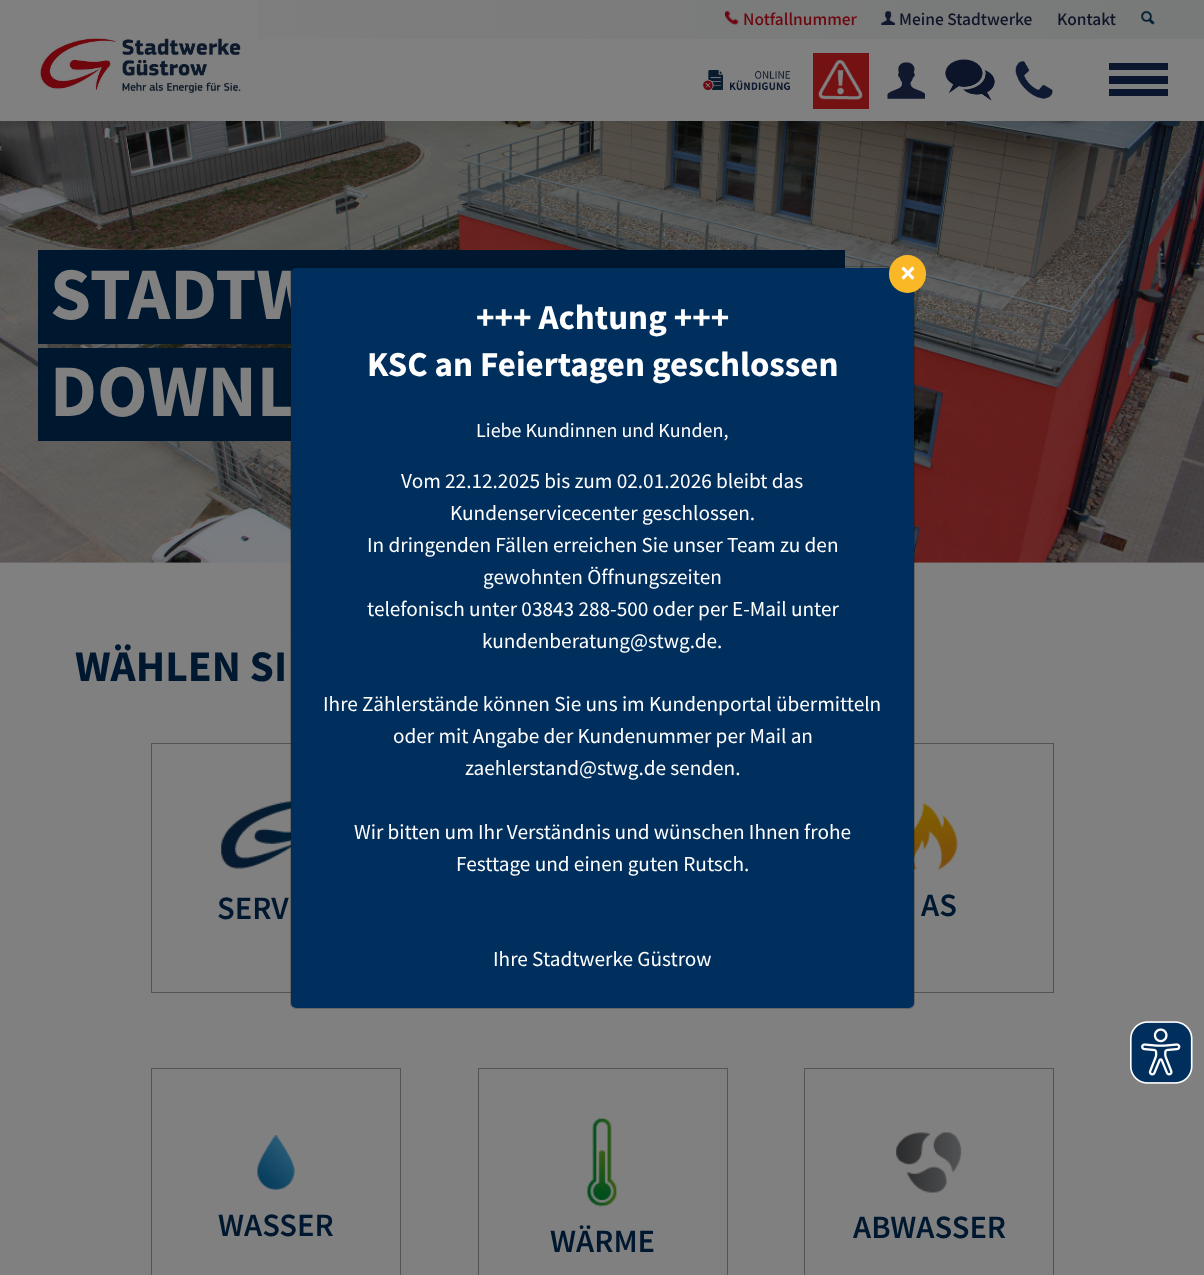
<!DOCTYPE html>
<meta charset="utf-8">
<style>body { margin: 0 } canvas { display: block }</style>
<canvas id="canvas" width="1204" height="1275"></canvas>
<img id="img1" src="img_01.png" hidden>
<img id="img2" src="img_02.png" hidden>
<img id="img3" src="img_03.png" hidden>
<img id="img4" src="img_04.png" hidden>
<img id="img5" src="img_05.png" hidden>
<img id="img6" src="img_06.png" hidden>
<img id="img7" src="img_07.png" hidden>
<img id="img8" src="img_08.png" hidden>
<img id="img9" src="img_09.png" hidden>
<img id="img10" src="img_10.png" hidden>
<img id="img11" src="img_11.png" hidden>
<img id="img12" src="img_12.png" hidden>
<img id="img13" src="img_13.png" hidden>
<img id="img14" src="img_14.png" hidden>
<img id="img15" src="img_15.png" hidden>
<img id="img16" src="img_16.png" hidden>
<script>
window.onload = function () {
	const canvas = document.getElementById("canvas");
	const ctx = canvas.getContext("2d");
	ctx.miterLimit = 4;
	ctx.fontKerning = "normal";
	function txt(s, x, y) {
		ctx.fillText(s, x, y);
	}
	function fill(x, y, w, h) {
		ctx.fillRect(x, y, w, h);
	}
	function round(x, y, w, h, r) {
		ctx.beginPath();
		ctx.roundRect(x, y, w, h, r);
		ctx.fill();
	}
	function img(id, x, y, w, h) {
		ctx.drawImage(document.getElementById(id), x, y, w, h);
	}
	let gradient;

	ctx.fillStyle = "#808080";
	fill(0, 0, 1204, 1275);
	gradient = ctx.createLinearGradient(0, 19, 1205, 19);
	gradient.addColorStop(0, "#7F7F7F");
	gradient.addColorStop(1, "#787979");
	ctx.fillStyle = gradient;
	fill(258, 0, 946, 39);
	img("img1", 725, 11, 14, 14);
	img("img2", 881, 11, 14, 14);
	img("img3", 1141, 11, 14, 14);
	img("img4", 40, 38, 201, 55);
	img("img5", 703, 70, 88, 21);
	ctx.fillStyle = "#741113";
	fill(813, 53, 56, 56);
	img("img6", 818, 60, 45, 40);
	img("img7", 887, 62, 38, 37);
	img("img8", 945, 59, 50, 42);
	img("img9", 1015, 61, 38, 38);
	ctx.fillStyle = "#0A162E";
	fill(1109, 63, 59, 7);
	fill(1109, 89, 59, 7);
	fill(1109, 76, 59, 8);
	img("img10", 0, 121, 1204, 442);
	ctx.fillStyle = "#00182F";
	fill(38, 250, 807, 94);
	fill(38, 348, 253, 93);
	ctx.strokeStyle = "#535454";
	ctx.strokeRect(151.5, 743.5, 249, 249);
	img("img11", 221, 801, 70, 68);
	ctx.strokeRect(804.5, 743.5, 249, 249);
	img("img12", 914, 803, 44, 67);
	ctx.strokeRect(151.5, 1068.5, 249, 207);
	img("img13", 257, 1135, 38, 55);
	ctx.strokeRect(478.5, 1068.5, 249, 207);
	img("img14", 587, 1118, 31, 89);
	ctx.strokeRect(804.5, 1068.5, 249, 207);
	img("img15", 896, 1132, 66, 61);
	img("img16", 1130, 1021, 63, 63);
	ctx.font = "500 17.5px Mada";
	ctx.fillStyle = "#6D0710";
	txt("Notfallnummer", 743, 25);
	ctx.fillStyle = "#101528";
	txt("Meine Stadtwerke", 899, 25);
	txt("Kontakt", 1057, 25);
	ctx.font = "bold 74px Mada";
	ctx.fillStyle = "#808080";
	txt("STADTW", 50, 319);
	txt("DOWNL", 50, 416);
	ctx.fillStyle = "#002F5D";
	round(291, 268, 623, 740, 5);
	ctx.beginPath();
	ctx.roundRect(290.5, 266.5, 624, 742, 5.5);
	ctx.strokeStyle = "rgba(0, 0, 0, 0.2)";
	ctx.stroke();
	ctx.fillStyle = "#FAB827";
	round(889, 255, 37, 38, 18.5);
	ctx.font = "bold 30px Mada";
	ctx.fillStyle = "#FFFFFF";
	txt("×", 900, 283);
	ctx.font = "bold 35px Mada";
	txt("+++ Achtung +++", 476, 329);
	txt("KSC an Feiertagen geschlossen", 367, 376);
	ctx.font = "20px Mada";
	txt("Liebe Kundinnen und Kunden,", 476, 437);
	ctx.font = "21.25px Mada";
	txt("Vom 22.12.2025 bis zum 02.01.2026 bleibt das", 401, 488);
	txt("Kundenservicecenter geschlossen.", 450, 520);
	txt("In dringenden Fällen erreichen Sie unser Team zu den", 367, 552);
	txt("gewohnten Öffnungszeiten", 483, 584);
	txt("telefonisch unter 03843 288-500 oder per E-Mail unter", 367, 616);
	txt("kundenberatung@stwg.de.", 482, 648);
	txt("Ihre Zählerstände können Sie uns im Kundenportal übermitteln", 323, 711);
	txt("oder mit Angabe der Kundenummer per Mail an", 393, 743);
	txt("zaehlerstand@stwg.de senden.", 465, 775);
	txt("Wir bitten um Ihr Verständnis und wünschen Ihnen frohe", 354, 839);
	txt("Festtage und einen guten Rutsch.", 456, 871);
	txt("Ihre Stadtwerke Güstrow", 493, 966);
	ctx.font = "bold 43.75px Mada";
	ctx.fillStyle = "#00182F";
	txt("WÄHLEN SI", 75, 681);
	ctx.font = "600 32.5px Mada";
	txt("SERV", 217, 919);
	txt("AS", 921, 916);
	txt("WASSER", 218, 1236);
	txt("WÄRME", 550, 1252);
	txt("ABWASSER", 853, 1238);
};
</script>
